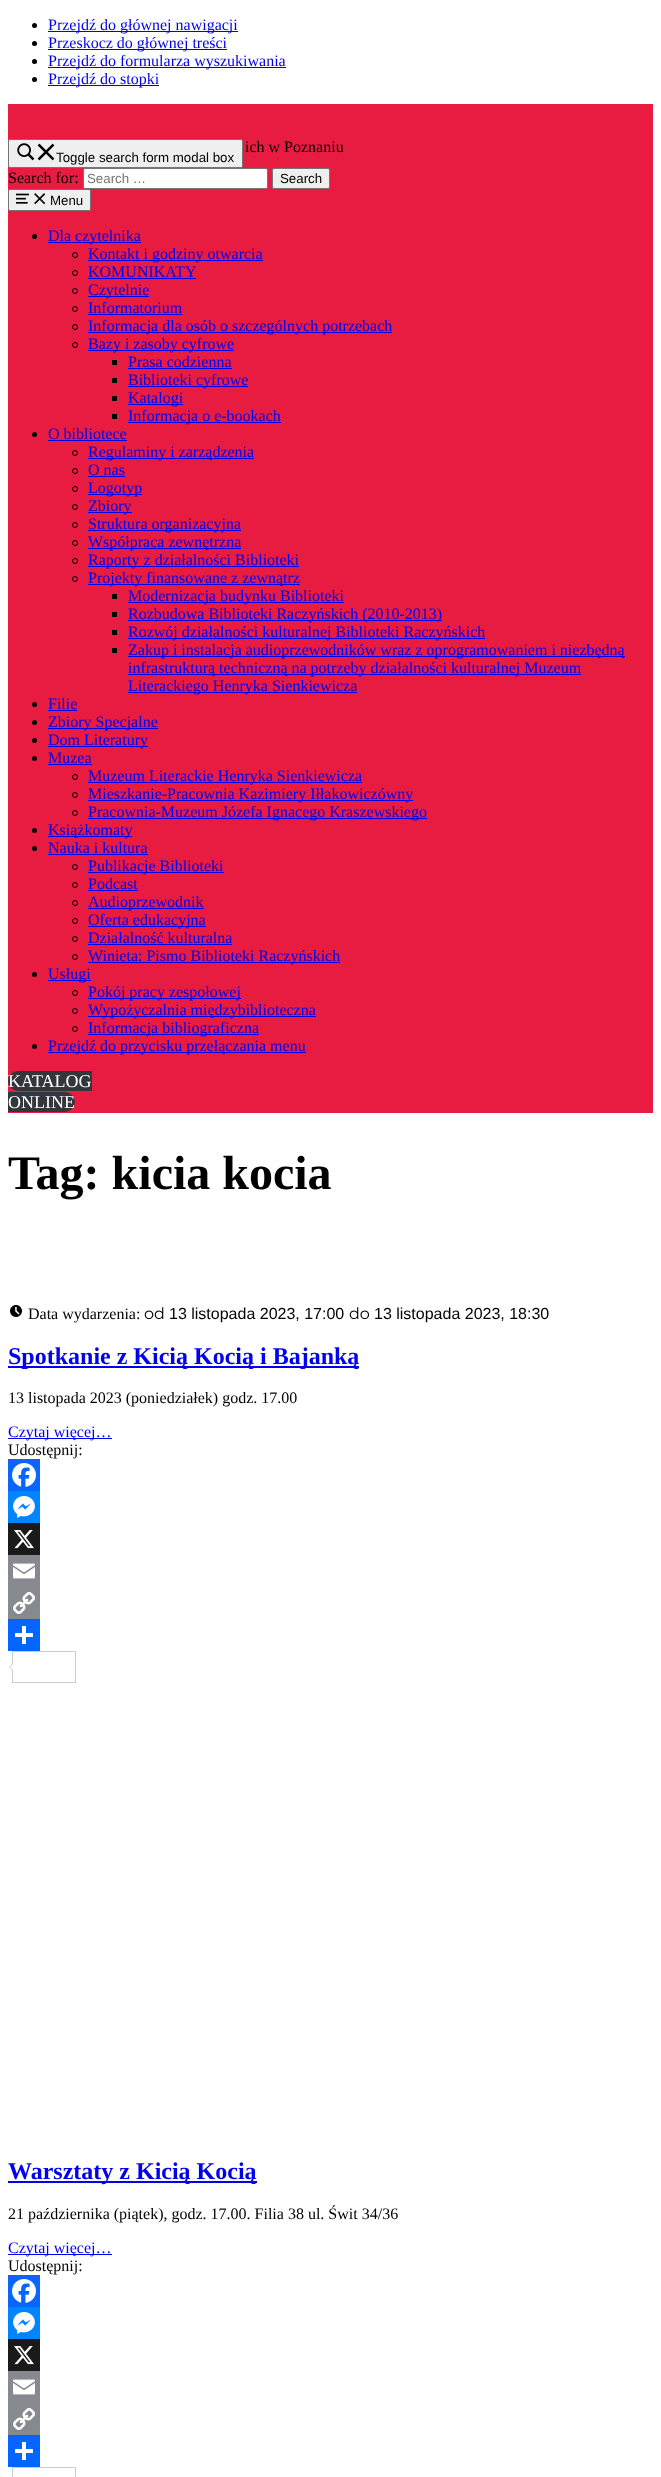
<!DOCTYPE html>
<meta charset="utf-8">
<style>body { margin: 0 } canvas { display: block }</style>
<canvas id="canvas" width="661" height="2477"></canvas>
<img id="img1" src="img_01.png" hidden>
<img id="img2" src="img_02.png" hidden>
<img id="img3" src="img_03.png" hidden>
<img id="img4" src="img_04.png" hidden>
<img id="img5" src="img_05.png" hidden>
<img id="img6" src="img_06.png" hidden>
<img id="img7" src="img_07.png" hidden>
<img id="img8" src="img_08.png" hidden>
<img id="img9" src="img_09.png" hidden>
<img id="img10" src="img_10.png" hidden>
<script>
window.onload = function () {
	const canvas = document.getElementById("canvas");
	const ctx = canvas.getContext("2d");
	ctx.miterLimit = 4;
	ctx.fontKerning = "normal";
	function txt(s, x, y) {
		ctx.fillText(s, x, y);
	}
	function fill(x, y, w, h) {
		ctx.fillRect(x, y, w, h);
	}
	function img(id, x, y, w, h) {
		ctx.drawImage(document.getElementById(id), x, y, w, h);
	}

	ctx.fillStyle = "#FFFFFF";
	fill(0, 0, 661, 2477);
	ctx.fillStyle = "#000000";
	ctx.beginPath();
	ctx.arc(34.5, 25.5, 2.5, 0, Math.PI * 2);
	ctx.fill();
	ctx.fillStyle = "#0000EE";
	fill(48, 31, 190, 1);
	ctx.fillStyle = "#000000";
	ctx.beginPath();
	ctx.arc(34.5, 43.5, 2.5, 0, Math.PI * 2);
	ctx.fill();
	ctx.fillStyle = "#0000EE";
	fill(48, 49, 179, 1);
	ctx.fillStyle = "#000000";
	ctx.beginPath();
	ctx.arc(34.5, 61.5, 2.5, 0, Math.PI * 2);
	ctx.fill();
	ctx.fillStyle = "#0000EE";
	fill(48, 67, 238, 1);
	ctx.fillStyle = "#000000";
	ctx.beginPath();
	ctx.arc(34.5, 79.5, 2.5, 0, Math.PI * 2);
	ctx.fill();
	ctx.fillStyle = "#0000EE";
	fill(48, 85, 111, 1);
	ctx.fillStyle = "#E81C40";
	fill(8, 104, 645, 1009);
	ctx.fillStyle = "#EFEFEF";
	ctx.beginPath();
	ctx.roundRect(8.5, 139.5, 234, 28, 1.5);
	ctx.fill();
	ctx.strokeStyle = "#767676";
	ctx.stroke();
	img("img1", 17, 143, 18, 18);
	img("img2", 37, 143, 18, 18);
	ctx.fillStyle = "#FFFFFF";
	ctx.beginPath();
	ctx.roundRect(83.5, 168.5, 184, 20, 1.5);
	ctx.fill();
	ctx.stroke();
	ctx.fillStyle = "#EFEFEF";
	ctx.beginPath();
	ctx.roundRect(272.5, 168.5, 57, 20, 1.5);
	ctx.fill();
	ctx.stroke();
	ctx.beginPath();
	ctx.roundRect(8.5, 189.5, 82, 21, 1.5);
	ctx.fill();
	ctx.stroke();
	img("img3", 16, 193, 13, 11);
	img("img4", 34, 193, 12, 12);
	ctx.fillStyle = "#000000";
	ctx.beginPath();
	ctx.arc(34.5, 236.5, 2.5, 0, Math.PI * 2);
	ctx.fill();
	ctx.fillStyle = "#0000EE";
	fill(48, 242, 93, 1);
	ctx.beginPath();
	ctx.arc(75, 255, 2.5, 0, Math.PI * 2);
	ctx.strokeStyle = "#000000";
	ctx.stroke();
	fill(88, 260, 175, 1);
	ctx.beginPath();
	ctx.arc(75, 273, 2.5, 0, Math.PI * 2);
	ctx.stroke();
	fill(88, 278, 108, 1);
	ctx.beginPath();
	ctx.arc(75, 291, 2.5, 0, Math.PI * 2);
	ctx.stroke();
	fill(88, 296, 61, 1);
	ctx.beginPath();
	ctx.arc(75, 309, 2.5, 0, Math.PI * 2);
	ctx.stroke();
	fill(88, 314, 94, 1);
	ctx.beginPath();
	ctx.arc(75, 327, 2.5, 0, Math.PI * 2);
	ctx.stroke();
	fill(88, 332, 304, 1);
	ctx.beginPath();
	ctx.arc(75, 345, 2.5, 0, Math.PI * 2);
	ctx.stroke();
	fill(88, 350, 146, 1);
	ctx.fillStyle = "#000000";
	fill(112, 360, 5, 5);
	ctx.fillStyle = "#0000EE";
	fill(128, 368, 104, 1);
	ctx.fillStyle = "#000000";
	fill(112, 378, 5, 5);
	ctx.fillStyle = "#0000EE";
	fill(128, 386, 120, 1);
	ctx.fillStyle = "#000000";
	fill(112, 396, 5, 5);
	ctx.fillStyle = "#0000EE";
	fill(128, 404, 55, 1);
	ctx.fillStyle = "#000000";
	fill(112, 414, 5, 5);
	ctx.fillStyle = "#0000EE";
	fill(128, 422, 153, 1);
	ctx.fillStyle = "#000000";
	ctx.beginPath();
	ctx.arc(34.5, 434.5, 2.5, 0, Math.PI * 2);
	ctx.fill();
	ctx.fillStyle = "#0000EE";
	fill(48, 440, 79, 1);
	ctx.beginPath();
	ctx.arc(75, 453, 2.5, 0, Math.PI * 2);
	ctx.stroke();
	fill(88, 458, 166, 1);
	ctx.beginPath();
	ctx.arc(75, 471, 2.5, 0, Math.PI * 2);
	ctx.stroke();
	fill(88, 476, 37, 1);
	ctx.beginPath();
	ctx.arc(75, 489, 2.5, 0, Math.PI * 2);
	ctx.stroke();
	fill(88, 494, 54, 1);
	ctx.beginPath();
	ctx.arc(75, 507, 2.5, 0, Math.PI * 2);
	ctx.stroke();
	fill(88, 512, 44, 1);
	ctx.beginPath();
	ctx.arc(75, 525, 2.5, 0, Math.PI * 2);
	ctx.stroke();
	fill(88, 530, 153, 1);
	ctx.beginPath();
	ctx.arc(75, 543, 2.5, 0, Math.PI * 2);
	ctx.stroke();
	fill(88, 548, 153, 1);
	ctx.beginPath();
	ctx.arc(75, 561, 2.5, 0, Math.PI * 2);
	ctx.stroke();
	fill(88, 566, 211, 1);
	ctx.beginPath();
	ctx.arc(75, 579, 2.5, 0, Math.PI * 2);
	ctx.stroke();
	fill(88, 584, 212, 1);
	ctx.fillStyle = "#000000";
	fill(112, 594, 5, 5);
	ctx.fillStyle = "#0000EE";
	fill(128, 602, 216, 1);
	ctx.fillStyle = "#000000";
	fill(112, 612, 5, 5);
	ctx.fillStyle = "#0000EE";
	fill(128, 620, 314, 1);
	ctx.fillStyle = "#000000";
	fill(112, 630, 5, 5);
	ctx.fillStyle = "#0000EE";
	fill(128, 638, 357, 1);
	ctx.fillStyle = "#000000";
	fill(112, 648, 5, 5);
	ctx.fillStyle = "#0000EE";
	fill(128, 656, 497, 1);
	fill(128, 674, 453, 1);
	fill(128, 692, 229, 1);
	ctx.fillStyle = "#000000";
	ctx.beginPath();
	ctx.arc(34.5, 704.5, 2.5, 0, Math.PI * 2);
	ctx.fill();
	ctx.fillStyle = "#0000EE";
	fill(48, 710, 29, 1);
	ctx.fillStyle = "#000000";
	ctx.beginPath();
	ctx.arc(34.5, 722.5, 2.5, 0, Math.PI * 2);
	ctx.fill();
	ctx.fillStyle = "#0000EE";
	fill(48, 728, 110, 1);
	ctx.fillStyle = "#000000";
	ctx.beginPath();
	ctx.arc(34.5, 740.5, 2.5, 0, Math.PI * 2);
	ctx.fill();
	ctx.fillStyle = "#0000EE";
	fill(48, 746, 100, 1);
	ctx.fillStyle = "#000000";
	ctx.beginPath();
	ctx.arc(34.5, 758.5, 2.5, 0, Math.PI * 2);
	ctx.fill();
	ctx.fillStyle = "#0000EE";
	fill(48, 764, 44, 1);
	ctx.beginPath();
	ctx.arc(75, 777, 2.5, 0, Math.PI * 2);
	ctx.stroke();
	fill(88, 782, 274, 1);
	ctx.beginPath();
	ctx.arc(75, 795, 2.5, 0, Math.PI * 2);
	ctx.stroke();
	fill(88, 800, 325, 1);
	ctx.beginPath();
	ctx.arc(75, 813, 2.5, 0, Math.PI * 2);
	ctx.stroke();
	fill(88, 818, 339, 1);
	ctx.fillStyle = "#000000";
	ctx.beginPath();
	ctx.arc(34.5, 830.5, 2.5, 0, Math.PI * 2);
	ctx.fill();
	ctx.fillStyle = "#0000EE";
	fill(48, 836, 84, 1);
	ctx.fillStyle = "#000000";
	ctx.beginPath();
	ctx.arc(34.5, 848.5, 2.5, 0, Math.PI * 2);
	ctx.fill();
	ctx.fillStyle = "#0000EE";
	fill(48, 854, 100, 1);
	ctx.beginPath();
	ctx.arc(75, 867, 2.5, 0, Math.PI * 2);
	ctx.stroke();
	fill(88, 872, 136, 1);
	ctx.beginPath();
	ctx.arc(75, 885, 2.5, 0, Math.PI * 2);
	ctx.stroke();
	fill(88, 890, 50, 1);
	ctx.beginPath();
	ctx.arc(75, 903, 2.5, 0, Math.PI * 2);
	ctx.stroke();
	fill(88, 908, 116, 1);
	ctx.beginPath();
	ctx.arc(75, 921, 2.5, 0, Math.PI * 2);
	ctx.stroke();
	fill(88, 926, 118, 1);
	ctx.beginPath();
	ctx.arc(75, 939, 2.5, 0, Math.PI * 2);
	ctx.stroke();
	fill(88, 944, 144, 1);
	ctx.beginPath();
	ctx.arc(75, 957, 2.5, 0, Math.PI * 2);
	ctx.stroke();
	fill(88, 962, 252, 1);
	ctx.fillStyle = "#000000";
	ctx.beginPath();
	ctx.arc(34.5, 974.5, 2.5, 0, Math.PI * 2);
	ctx.fill();
	ctx.fillStyle = "#0000EE";
	fill(48, 980, 43, 1);
	ctx.beginPath();
	ctx.arc(75, 993, 2.5, 0, Math.PI * 2);
	ctx.stroke();
	fill(88, 998, 153, 1);
	ctx.beginPath();
	ctx.arc(75, 1011, 2.5, 0, Math.PI * 2);
	ctx.stroke();
	fill(88, 1016, 228, 1);
	ctx.beginPath();
	ctx.arc(75, 1029, 2.5, 0, Math.PI * 2);
	ctx.stroke();
	fill(88, 1034, 171, 1);
	ctx.fillStyle = "#000000";
	ctx.beginPath();
	ctx.arc(34.5, 1046.5, 2.5, 0, Math.PI * 2);
	ctx.fill();
	ctx.fillStyle = "#0000EE";
	fill(48, 1052, 258, 1);
	ctx.fillStyle = "#32373C";
	ctx.beginPath();
	ctx.roundRect(8, 1071, 84, 20, [10, 0, 0, 10]);
	ctx.fill();
	ctx.beginPath();
	ctx.roundRect(8, 1092, 67, 20, [0, 10, 10, 0]);
	ctx.fill();
	img("img5", 10, 1305, 12, 12);
	ctx.fillStyle = "#0000EE";
	fill(8, 1366, 351, 2);
	fill(8, 1438, 104, 1);
	ctx.fillStyle = "#0866FF";
	fill(8, 1459, 32, 32);
	img("img6", 12, 1463, 24, 24);
	ctx.fillStyle = "#0084FF";
	fill(8, 1491, 32, 32);
	img("img7", 13, 1496, 22, 22);
	ctx.fillStyle = "#1A1A1A";
	fill(8, 1523, 32, 32);
	img("img8", 14, 1530, 20, 19);
	ctx.fillStyle = "#888990";
	fill(8, 1555, 32, 64);
	img("img9", 13, 1563, 22, 16);
	img("img10", 13, 1592, 22, 22);
	ctx.fillStyle = "#0166FF";
	fill(8, 1619, 32, 32);
	ctx.fillStyle = "#FFFFFF";
	fill(22, 1626, 4, 18);
	fill(15, 1633, 18, 4);
	ctx.strokeStyle = "#CCCCCC";
	ctx.strokeRect(12.5, 1651.5, 63, 31);
	ctx.fillStyle = "#CCCCCC";
	ctx.beginPath();
	ctx.moveTo(13, 1663);
	ctx.lineTo(13, 1671);
	ctx.lineTo(9, 1667);
	ctx.closePath();
	ctx.fill();
	ctx.fillStyle = "#FFFFFF";
	ctx.beginPath();
	ctx.moveTo(14, 1663);
	ctx.lineTo(14, 1671);
	ctx.lineTo(10, 1667);
	ctx.closePath();
	ctx.fill();
	ctx.fillStyle = "#0000EE";
	fill(8, 2181, 249, 2);
	fill(8, 2254, 104, 1);
	ctx.fillStyle = "#0866FF";
	fill(8, 2275, 32, 32);
	img("img6", 12, 2279, 24, 24);
	ctx.fillStyle = "#0084FF";
	fill(8, 2307, 32, 32);
	img("img7", 13, 2312, 22, 22);
	ctx.fillStyle = "#1A1A1A";
	fill(8, 2339, 32, 32);
	img("img8", 14, 2346, 20, 19);
	ctx.fillStyle = "#888990";
	fill(8, 2371, 32, 64);
	img("img9", 13, 2379, 22, 16);
	img("img10", 13, 2408, 22, 22);
	ctx.fillStyle = "#0166FF";
	fill(8, 2435, 32, 32);
	ctx.fillStyle = "#FFFFFF";
	fill(22, 2442, 4, 18);
	fill(15, 2449, 18, 4);
	ctx.strokeRect(12.5, 2467.5, 63, 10);
	ctx.font = "16px Liberation Serif";
	ctx.fillStyle = "#0000EE";
	txt("Przejdź do głównej nawigacji", 48, 30);
	txt("Przeskocz do głównej treści", 48, 48);
	txt("Przejdź do formularza wyszukiwania", 48, 66);
	txt("Przejdź do stopki", 48, 84);
	ctx.fillStyle = "#000000";
	txt("ich w Poznaniu", 245, 152);
	ctx.font = "13.3px Liberation Sans";
	txt("Toggle search form modal box", 56, 162);
	ctx.font = "16px Liberation Serif";
	txt("Search for:", 8, 183);
	ctx.font = "13.3px Liberation Sans";
	ctx.fillStyle = "#757575";
	txt("Search …", 87, 183);
	ctx.fillStyle = "#000000";
	txt("Search", 280, 183);
	txt("Menu", 50, 205);
	ctx.font = "16px Liberation Serif";
	ctx.fillStyle = "#0000EE";
	txt("Dla czytelnika", 48, 241);
	txt("Kontakt i godziny otwarcia", 88, 259);
	txt("KOMUNIKATY", 88, 277);
	txt("Czytelnie", 88, 295);
	txt("Informatorium", 88, 313);
	txt("Informacja dla osób o szczególnych potrzebach", 88, 331);
	txt("Bazy i zasoby cyfrowe", 88, 349);
	txt("Prasa codzienna", 128, 367);
	txt("Biblioteki cyfrowe", 128, 385);
	txt("Katalogi", 128, 403);
	txt("Informacja o e-bookach", 128, 421);
	txt("O bibliotece", 48, 439);
	txt("Regulaminy i zarządzenia", 88, 457);
	txt("O nas", 88, 475);
	txt("Logotyp", 88, 493);
	txt("Zbiory", 88, 511);
	txt("Struktura organizacyjna", 88, 529);
	txt("Współpraca zewnętrzna", 88, 547);
	txt("Raporty z działalności Biblioteki", 88, 565);
	txt("Projekty finansowane z zewnątrz", 88, 583);
	txt("Modernizacja budynku Biblioteki", 128, 601);
	txt("Rozbudowa Biblioteki Raczyńskich (2010-2013)", 128, 619);
	txt("Rozwój działalności kulturalnej Biblioteki Raczyńskich", 128, 637);
	txt("Zakup i instalacja audioprzewodników wraz z oprogramowaniem i niezbędną", 128, 655);
	txt("infrastrukturą techniczną na potrzeby działalności kulturalnej Muzeum", 128, 673);
	txt("Literackiego Henryka Sienkiewicza", 128, 691);
	txt("Filie", 48, 709);
	txt("Zbiory Specjalne", 48, 727);
	txt("Dom Literatury", 48, 745);
	txt("Muzea", 48, 763);
	txt("Muzeum Literackie Henryka Sienkiewicza", 88, 781);
	txt("Mieszkanie-Pracownia Kazimiery Iłłakowiczówny", 88, 799);
	txt("Pracownia-Muzeum Józefa Ignacego Kraszewskiego", 88, 817);
	txt("Książkomaty", 48, 835);
	txt("Nauka i kultura", 48, 853);
	txt("Publikacje Biblioteki", 88, 871);
	txt("Podcast", 88, 889);
	txt("Audioprzewodnik", 88, 907);
	txt("Oferta edukacyjna", 88, 925);
	txt("Działalność kulturalna", 88, 943);
	txt("Winieta: Pismo Biblioteki Raczyńskich", 88, 961);
	txt("Usługi", 48, 979);
	txt("Pokój pracy zespołowej", 88, 997);
	txt("Wypożyczalnia międzybiblioteczna", 88, 1015);
	txt("Informacja bibliograficzna", 88, 1033);
	txt("Przejdź do przycisku przełączania menu", 48, 1051);
	ctx.font = "18px Liberation Serif";
	ctx.fillStyle = "#FFFFFF";
	txt("KATALOG", 8, 1087);
	txt("ONLINE", 8, 1108);
	ctx.font = "bold 48px Liberation Serif";
	ctx.fillStyle = "#000000";
	txt("Tag: kicia kocia", 8, 1189);
	ctx.font = "16px Liberation Serif";
	txt("Data wydarzenia:", 28, 1319);
	ctx.font = "16px Montserrat";
	txt("od", 144, 1319);
	ctx.font = "16px Liberation Sans";
	txt("13 listopada 2023, 17:00", 169, 1319);
	ctx.font = "16px Montserrat";
	txt("do", 349, 1319);
	ctx.font = "16px Liberation Sans";
	txt("13 listopada 2023, 18:30", 374, 1319);
	ctx.font = "bold 24px Liberation Serif";
	ctx.fillStyle = "#0000EE";
	txt("Spotkanie z Kicią Kocią i Bajanką", 8, 1364);
	ctx.font = "16px Liberation Serif";
	ctx.fillStyle = "#000000";
	txt("13 listopada 2023 (poniedziałek) godz. 17.00", 8, 1403);
	ctx.fillStyle = "#0000EE";
	txt("Czytaj więcej…", 8, 1437);
	ctx.fillStyle = "#000000";
	txt("Udostępnij:", 8, 1455);
	ctx.font = "bold 24px Liberation Serif";
	ctx.fillStyle = "#0000EE";
	txt("Warsztaty z Kicią Kocią", 8, 2179);
	ctx.font = "16px Liberation Serif";
	ctx.fillStyle = "#000000";
	txt("21 października (piątek), godz. 17.00. Filia 38 ul. Świt 34/36", 8, 2219);
	ctx.fillStyle = "#0000EE";
	txt("Czytaj więcej…", 8, 2253);
	ctx.fillStyle = "#000000";
	txt("Udostępnij:", 8, 2271);
};
</script>
